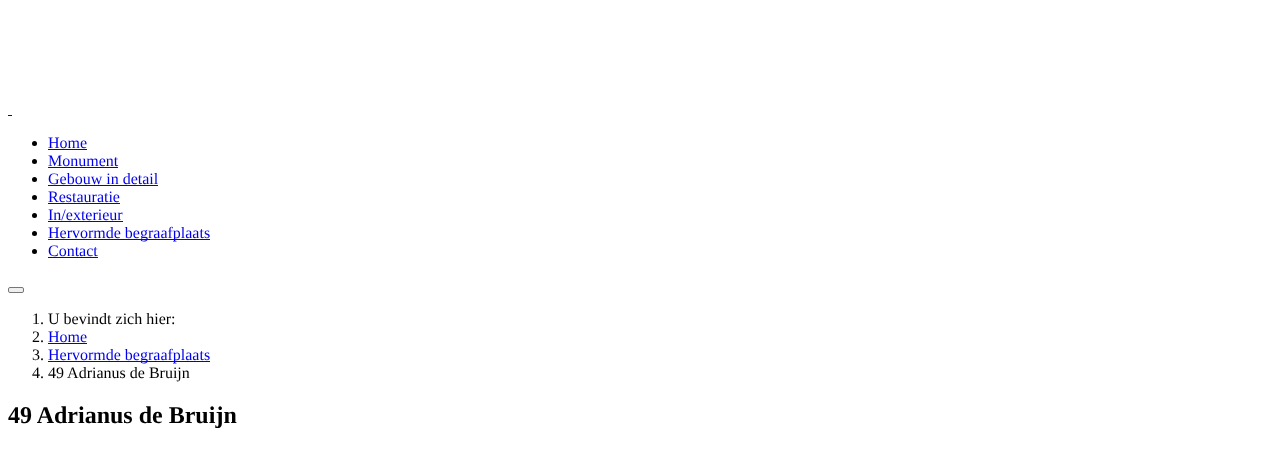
<!DOCTYPE html>
<meta charset="utf-8">
<style>body { margin: 0 } canvas { display: block }</style>
<canvas id="canvas" width="1264" height="452"></canvas>
<script>
window.onload = function () {
	const canvas = document.getElementById("canvas");
	const ctx = canvas.getContext("2d");
	ctx.miterLimit = 4;
	ctx.fontKerning = "normal";
	function txt(s, x, y) {
		ctx.fillText(s, x, y);
	}
	function fill(x, y, w, h) {
		ctx.fillRect(x, y, w, h);
	}

	ctx.fillStyle = "#FFFFFF";
	fill(0, 0, 1264, 452);
	ctx.fillStyle = "#0000EE";
	fill(8, 115, 4, 1);
	ctx.fillStyle = "#000000";
	ctx.beginPath();
	ctx.arc(34.5, 143.5, 2.5, 0, Math.PI * 2);
	ctx.fill();
	ctx.fillStyle = "#0000EE";
	fill(48, 149, 39, 1);
	ctx.fillStyle = "#000000";
	ctx.beginPath();
	ctx.arc(34.5, 161.5, 2.5, 0, Math.PI * 2);
	ctx.fill();
	ctx.fillStyle = "#0000EE";
	fill(48, 167, 70, 1);
	ctx.fillStyle = "#000000";
	ctx.beginPath();
	ctx.arc(34.5, 179.5, 2.5, 0, Math.PI * 2);
	ctx.fill();
	ctx.fillStyle = "#0000EE";
	fill(48, 185, 110, 1);
	ctx.fillStyle = "#000000";
	ctx.beginPath();
	ctx.arc(34.5, 197.5, 2.5, 0, Math.PI * 2);
	ctx.fill();
	ctx.fillStyle = "#0000EE";
	fill(48, 203, 72, 1);
	ctx.fillStyle = "#000000";
	ctx.beginPath();
	ctx.arc(34.5, 215.5, 2.5, 0, Math.PI * 2);
	ctx.fill();
	ctx.fillStyle = "#0000EE";
	fill(48, 221, 75, 1);
	ctx.fillStyle = "#000000";
	ctx.beginPath();
	ctx.arc(34.5, 233.5, 2.5, 0, Math.PI * 2);
	ctx.fill();
	ctx.fillStyle = "#0000EE";
	fill(48, 239, 162, 1);
	ctx.fillStyle = "#000000";
	ctx.beginPath();
	ctx.arc(34.5, 251.5, 2.5, 0, Math.PI * 2);
	ctx.fill();
	ctx.fillStyle = "#0000EE";
	fill(48, 257, 50, 1);
	ctx.fillStyle = "#EFEFEF";
	ctx.beginPath();
	ctx.roundRect(8.5, 287.5, 15, 5, 1.5);
	ctx.fill();
	ctx.strokeStyle = "#767676";
	ctx.stroke();
	ctx.fillStyle = "#0000EE";
	fill(48, 343, 39, 1);
	fill(48, 361, 162, 1);
	ctx.font = "16px Liberation Serif";
	txt("Home", 48, 148);
	txt("Monument", 48, 166);
	txt("Gebouw in detail", 48, 184);
	txt("Restauratie", 48, 202);
	txt("In/exterieur", 48, 220);
	txt("Hervormde begraafplaats", 48, 238);
	txt("Contact", 48, 256);
	ctx.fillStyle = "#000000";
	txt("1. U bevindt zich hier:", 32, 324);
	txt("2.", 32, 342);
	ctx.fillStyle = "#0000EE";
	txt("Home", 48, 342);
	ctx.fillStyle = "#000000";
	txt("3.", 32, 360);
	ctx.fillStyle = "#0000EE";
	txt("Hervormde begraafplaats", 48, 360);
	ctx.fillStyle = "#000000";
	txt("4. 49 Adrianus de Bruijn", 32, 378);
	ctx.font = "bold 24px Liberation Serif";
	txt("49 Adrianus de Bruijn", 8, 423);
};
</script>
